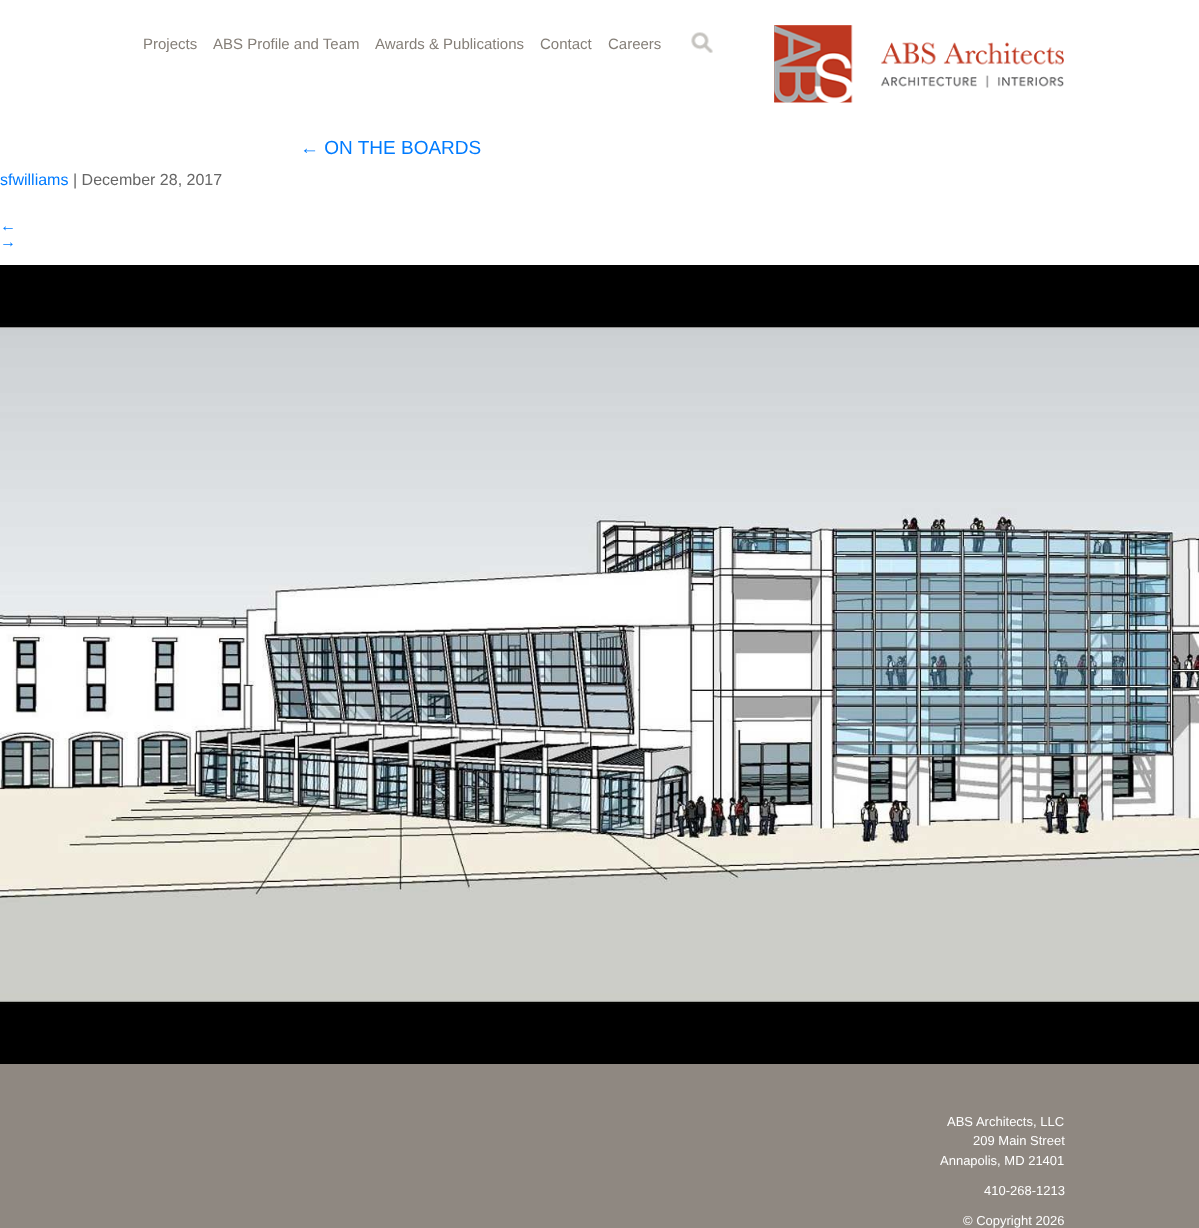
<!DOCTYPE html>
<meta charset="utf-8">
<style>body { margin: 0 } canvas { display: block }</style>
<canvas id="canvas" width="1199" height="1228"></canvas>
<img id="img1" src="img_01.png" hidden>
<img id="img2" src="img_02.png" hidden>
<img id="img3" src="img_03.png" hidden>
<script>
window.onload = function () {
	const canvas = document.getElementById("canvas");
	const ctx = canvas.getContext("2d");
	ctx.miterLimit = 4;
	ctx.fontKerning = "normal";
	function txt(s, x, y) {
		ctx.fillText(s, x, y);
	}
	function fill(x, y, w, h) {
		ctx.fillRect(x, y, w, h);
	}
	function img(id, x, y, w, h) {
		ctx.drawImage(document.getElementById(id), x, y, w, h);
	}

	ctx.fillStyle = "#8F8881";
	fill(0, 0, 1199, 1228);
	ctx.fillStyle = "#FFFFFF";
	fill(0, 0, 1199, 265);
	ctx.fillStyle = "#C5C3BF";
	fill(691, 32, 22, 21);
	img("img1", 685, 25, 34, 34);
	img("img2", 774, 25, 290, 78);
	img("img3", 0, 265, 1199, 799);
	ctx.font = "15px Liberation Sans";
	ctx.fillStyle = "#857F78";
	txt("Projects", 143, 49);
	txt("ABS Profile and Team", 213, 49);
	txt("Awards & Publications", 375, 49);
	txt("Contact", 540, 49);
	txt("Careers", 608, 49);
	ctx.font = "19px Liberation Sans";
	ctx.fillStyle = "#007BFF";
	txt("← ON THE BOARDS", 300, 154);
	ctx.font = "16px Liberation Sans";
	txt("sfwilliams", 0, 185);
	ctx.fillStyle = "#666666";
	txt("| December 28, 2017", 73, 185);
	ctx.fillStyle = "#007BFF";
	txt("←", 0, 231);
	txt("→", 0, 247);
	ctx.font = "13px Liberation Sans";
	ctx.fillStyle = "#FFFFFF";
	txt("ABS Architects, LLC", 947, 1126);
	txt("209 Main Street", 973, 1145);
	txt("Annapolis, MD 21401", 940, 1165);
	txt("410-268-1213", 984, 1195);
	txt("© Copyright 2026", 963, 1225);
};
</script>
